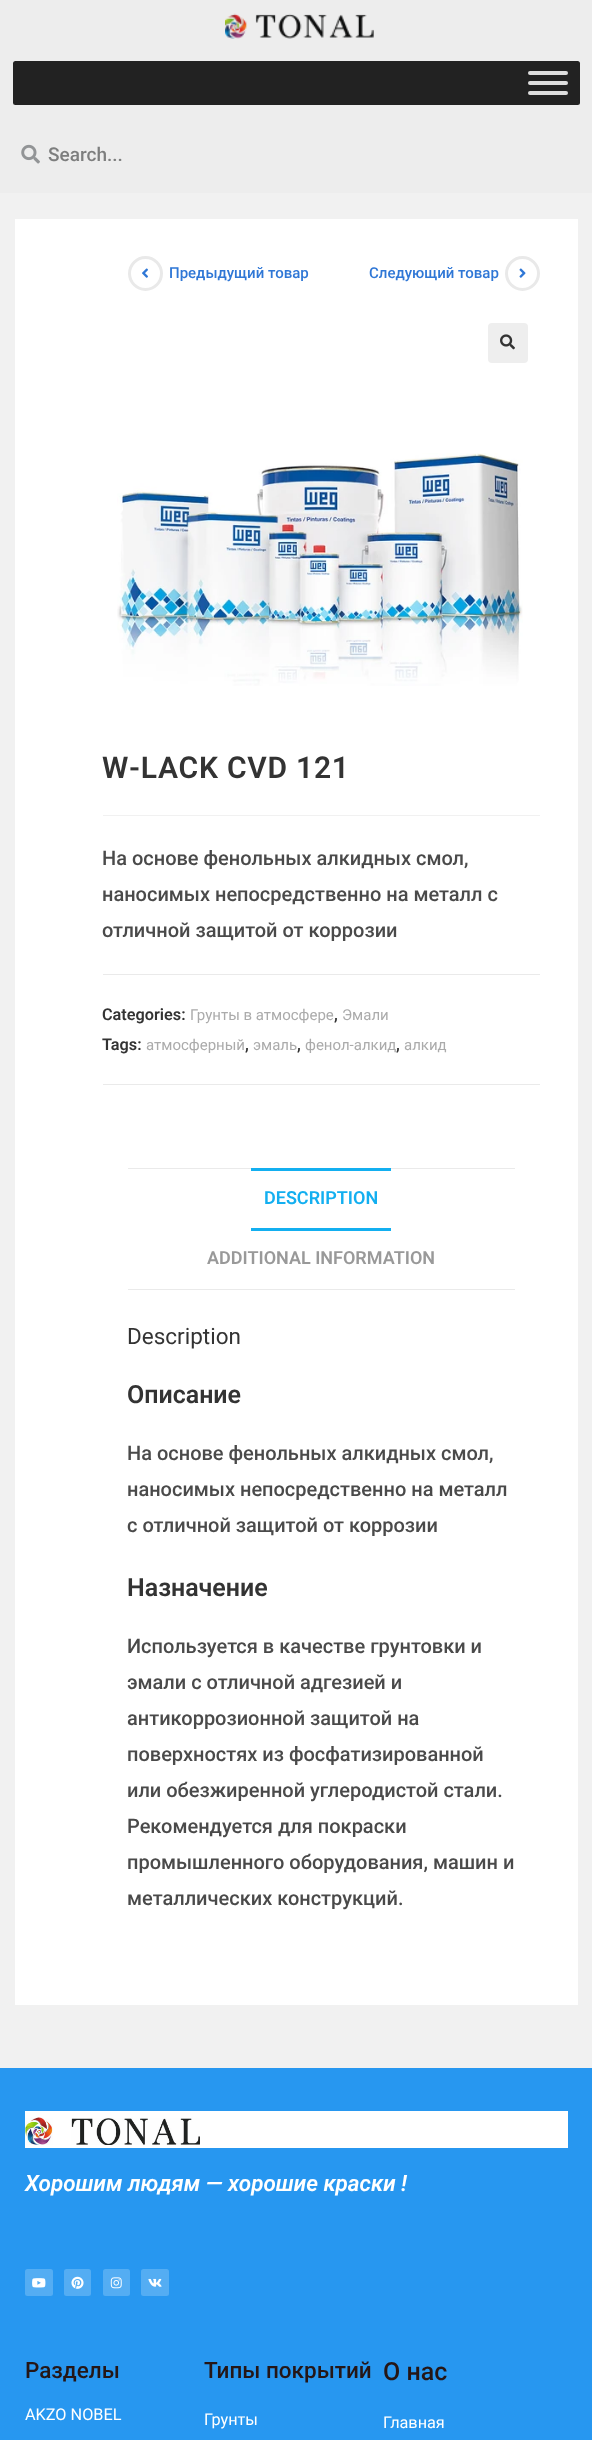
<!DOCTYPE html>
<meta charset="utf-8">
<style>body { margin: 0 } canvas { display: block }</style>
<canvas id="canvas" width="592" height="2440"></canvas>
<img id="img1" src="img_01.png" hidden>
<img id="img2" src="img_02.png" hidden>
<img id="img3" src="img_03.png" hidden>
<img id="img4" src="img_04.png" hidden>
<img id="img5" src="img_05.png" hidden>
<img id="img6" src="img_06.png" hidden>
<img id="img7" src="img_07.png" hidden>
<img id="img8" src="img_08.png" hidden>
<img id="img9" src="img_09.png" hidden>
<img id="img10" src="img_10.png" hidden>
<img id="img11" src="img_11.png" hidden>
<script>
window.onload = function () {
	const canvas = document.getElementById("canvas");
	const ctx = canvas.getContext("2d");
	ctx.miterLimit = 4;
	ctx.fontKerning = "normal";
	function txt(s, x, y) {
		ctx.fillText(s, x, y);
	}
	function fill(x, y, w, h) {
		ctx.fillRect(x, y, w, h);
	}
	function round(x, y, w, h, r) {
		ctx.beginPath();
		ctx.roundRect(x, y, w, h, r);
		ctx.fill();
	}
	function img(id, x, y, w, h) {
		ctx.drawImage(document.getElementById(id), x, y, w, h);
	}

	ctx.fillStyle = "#F1F1F1";
	fill(0, 0, 592, 2440);
	ctx.fillStyle = "#EDEDED";
	fill(0, 0, 592, 193);
	img("img1", 225, 13, 149, 26);
	ctx.fillStyle = "#222222";
	round(13, 61, 567, 44, 2.5);
	ctx.fillStyle = "#DDDDDD";
	round(528, 71, 40, 4, 2);
	round(528, 81, 40, 4, 2);
	round(528, 91, 40, 4, 2);
	img("img2", 21, 144, 19, 20);
	ctx.fillStyle = "#FFFFFF";
	fill(15, 219, 563, 1786);
	ctx.beginPath();
	ctx.arc(145.5, 273.5, 16, 0, Math.PI * 2);
	ctx.strokeStyle = "#E9E9E9";
	ctx.lineWidth = 3;
	ctx.stroke();
	img("img3", 142, 268, 6, 10);
	ctx.beginPath();
	ctx.arc(522.5, 273.5, 16, 0, Math.PI * 2);
	ctx.stroke();
	img("img4", 519, 268, 7, 10);
	ctx.fillStyle = "#EEEEEE";
	round(488, 323, 40, 40, 4);
	img("img5", 500, 334, 15, 16);
	img("img6", 117, 453, 406, 233);
	ctx.fillStyle = "#F1F1F1";
	fill(103, 815, 437, 1);
	ctx.fillStyle = "#EAEAEA";
	fill(103, 974, 437, 1);
	fill(103, 1084, 437, 1);
	fill(128, 1168, 387, 1);
	fill(128, 1289, 387, 1);
	ctx.fillStyle = "#13AFF0";
	fill(251, 1168, 140, 3);
	fill(251, 1228, 140, 3);
	ctx.fillStyle = "#2797F0";
	fill(0, 2068, 592, 372);
	ctx.fillStyle = "#FFFFFF";
	fill(25, 2111, 543, 37);
	img("img7", 25, 2117, 175, 28);
	ctx.fillStyle = "#54ADF3";
	round(25, 2269, 28, 27, 2.5);
	img("img8", 32, 2278, 14, 10);
	round(64, 2269, 27, 27, 2.5);
	img("img9", 71, 2276, 13, 13);
	round(103, 2269, 27, 27, 2.5);
	img("img10", 110, 2277, 12, 12);
	round(141, 2269, 28, 27, 2.5);
	img("img11", 148, 2278, 14, 9);
	ctx.font = "500 19px Roboto";
	ctx.fillStyle = "#7D7E7E";
	txt("Search...", 48, 161);
	ctx.font = "500 15px Roboto";
	ctx.fillStyle = "#2F77D6";
	txt("Предыдущий товар", 169, 278);
	txt("Следующий товар", 369, 278);
	ctx.letterSpacing = "0.75px";
	ctx.font = "600 30px Roboto";
	ctx.fillStyle = "#333333";
	txt("W-LACK CVD 121", 102, 778);
	ctx.letterSpacing = "0px";
	ctx.font = "500 20px Roboto";
	ctx.fillStyle = "#4A4A4A";
	txt("На основе фенольных алкидных смол,", 102, 865);
	txt("наносимых непосредственно на металл с", 102, 901);
	txt("отличной защитой от коррозии", 102, 937);
	ctx.font = "600 16.25px Roboto";
	ctx.fillStyle = "#333333";
	txt("Categories:", 102, 1020);
	ctx.font = "15px Roboto";
	ctx.fillStyle = "#ABABAB";
	txt("Грунты в атмосфере", 190, 1020);
	ctx.font = "600 16.25px Roboto";
	ctx.fillStyle = "#333333";
	txt(",", 334, 1020);
	ctx.font = "15px Roboto";
	ctx.fillStyle = "#ABABAB";
	txt("Эмали", 342, 1020);
	ctx.font = "600 16.25px Roboto";
	ctx.fillStyle = "#333333";
	txt("Tags:", 102, 1050);
	ctx.font = "15px Roboto";
	ctx.fillStyle = "#ABABAB";
	txt("атмосферный", 146, 1050);
	ctx.font = "600 16.25px Roboto";
	ctx.fillStyle = "#333333";
	txt(",", 245, 1050);
	ctx.font = "15px Roboto";
	ctx.fillStyle = "#ABABAB";
	txt("эмаль", 253, 1050);
	ctx.font = "600 16.25px Roboto";
	ctx.fillStyle = "#333333";
	txt(",", 297, 1050);
	ctx.font = "15px Roboto";
	ctx.fillStyle = "#ABABAB";
	txt("фенол-алкид", 305, 1050);
	ctx.font = "600 16.25px Roboto";
	ctx.fillStyle = "#333333";
	txt(",", 396, 1050);
	ctx.font = "15px Roboto";
	ctx.fillStyle = "#ABABAB";
	txt("алкид", 404, 1050);
	ctx.font = "600 18px Roboto";
	ctx.fillStyle = "#13AFF0";
	txt("DESCRIPTION", 264, 1204);
	ctx.fillStyle = "#999999";
	txt("ADDITIONAL INFORMATION", 207, 1264);
	ctx.font = "22.5px Roboto";
	ctx.fillStyle = "#333333";
	txt("Description", 127, 1344);
	ctx.font = "600 25px Roboto";
	txt("Описание", 127, 1403);
	ctx.font = "500 20px Roboto";
	ctx.fillStyle = "#4A4A4A";
	txt("На основе фенольных алкидных смол,", 127, 1460);
	txt("наносимых непосредственно на металл", 127, 1496);
	txt("с отличной защитой от коррозии", 127, 1532);
	ctx.font = "600 25px Roboto";
	ctx.fillStyle = "#333333";
	txt("Назначение", 127, 1596);
	ctx.font = "500 20px Roboto";
	ctx.fillStyle = "#4A4A4A";
	txt("Используется в качестве грунтовки и", 127, 1653);
	txt("эмали с отличной адгезией и", 127, 1689);
	txt("антикоррозионной защитой на", 127, 1725);
	txt("поверхностях из фосфатизированной", 127, 1761);
	txt("или обезжиренной углеродистой стали.", 127, 1797);
	txt("Рекомендуется для покраски", 127, 1833);
	txt("промышленного оборудования, машин и", 127, 1869);
	txt("металлических конструкций.", 127, 1905);
	ctx.font = "italic 600 22.5px Roboto";
	ctx.fillStyle = "#FFFFFF";
	txt("Хорошим людям — хорошие краски !", 25, 2191);
	ctx.font = "500 22.5px Roboto";
	ctx.fillStyle = "#251616";
	txt("Разделы", 25, 2378);
	ctx.font = "16.25px Roboto";
	ctx.fillStyle = "#FFFFFF";
	txt("AKZO NOBEL", 25, 2420);
	ctx.font = "500 22.5px Roboto";
	ctx.fillStyle = "#251616";
	txt("Типы покрытий", 204, 2378);
	ctx.font = "16.25px Roboto";
	ctx.fillStyle = "#FFFFFF";
	txt("Грунты", 204, 2425);
	ctx.font = "500 25px Roboto";
	ctx.fillStyle = "#251616";
	txt("О нас", 383, 2380);
	ctx.font = "16.25px Roboto";
	ctx.fillStyle = "#FFFFFF";
	txt("Главная", 383, 2428);
};
</script>
